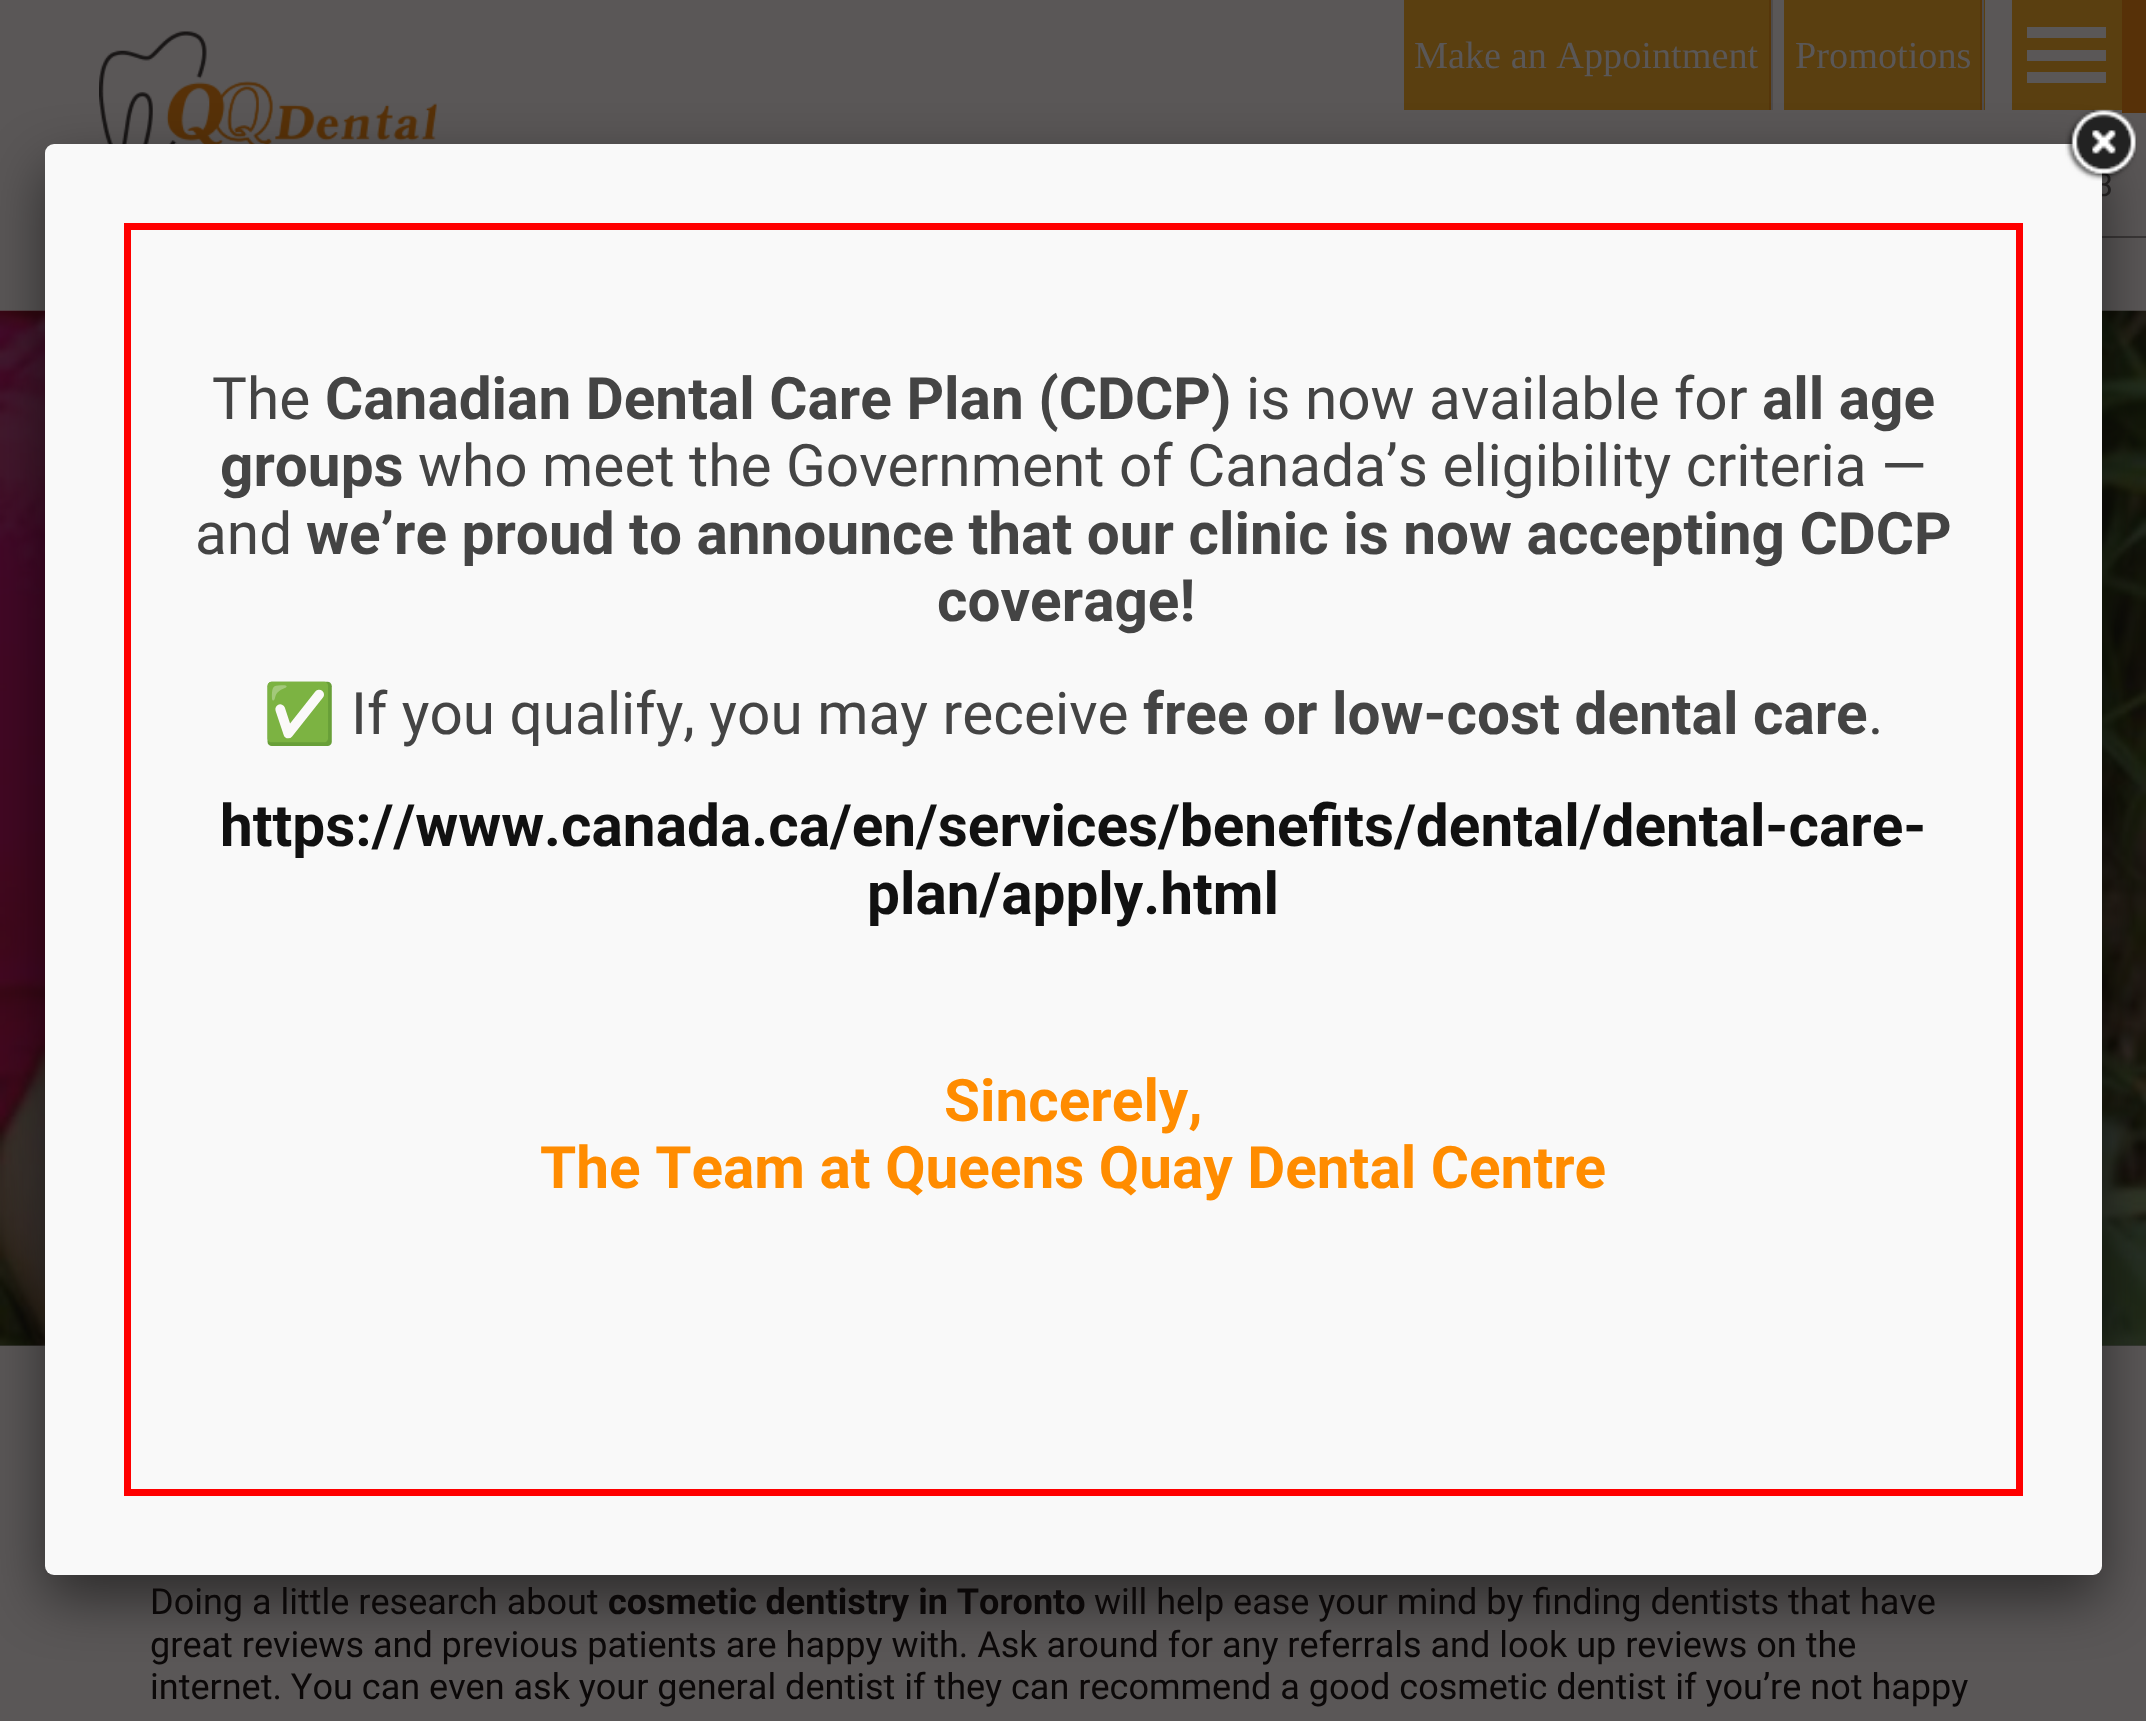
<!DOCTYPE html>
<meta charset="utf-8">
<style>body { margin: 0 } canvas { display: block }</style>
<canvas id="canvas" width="2146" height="1721"></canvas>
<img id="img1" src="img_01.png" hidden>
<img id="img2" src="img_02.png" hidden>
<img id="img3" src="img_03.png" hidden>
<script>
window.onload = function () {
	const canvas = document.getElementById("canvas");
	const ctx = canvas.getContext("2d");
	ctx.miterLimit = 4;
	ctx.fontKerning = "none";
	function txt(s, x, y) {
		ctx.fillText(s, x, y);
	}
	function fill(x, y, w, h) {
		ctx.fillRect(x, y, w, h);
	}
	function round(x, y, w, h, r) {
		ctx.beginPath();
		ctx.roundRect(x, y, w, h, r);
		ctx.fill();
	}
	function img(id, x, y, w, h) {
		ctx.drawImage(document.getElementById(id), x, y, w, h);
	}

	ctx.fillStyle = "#5A5757";
	fill(0, 0, 2146, 1721);
	ctx.fillStyle = "#434040";
	fill(0, 1345, 2146, 1);
	img("img1", 99, 31, 338, 113);
	ctx.fillStyle = "#573108";
	fill(2122, 0, 24, 113);
	ctx.fillStyle = "#5A3F10";
	fill(1404, 0, 365, 110);
	ctx.fillStyle = "#4E4B4B";
	fill(1771, 0, 2, 110);
	ctx.fillStyle = "#56360A";
	fill(1769, 0, 2, 110);
	ctx.fillStyle = "#5A3F10";
	fill(1784, 0, 201, 110);
	ctx.fillStyle = "#4E4B4B";
	fill(1982, 0, 2, 110);
	ctx.fillStyle = "#56360A";
	fill(1980, 0, 2, 110);
	ctx.fillStyle = "#5A3F10";
	fill(2012, 0, 110, 110);
	ctx.fillStyle = "#5A5757";
	fill(2027, 27, 79, 11);
	fill(2027, 50, 79, 11);
	fill(2027, 72, 79, 11);
	ctx.fillStyle = "#3A3737";
	fill(2102, 236, 44, 2);
	img("img2", 0, 310, 2146, 1036);
	ctx.fillStyle = "rgba(0, 0, 0, 0.5)";
	ctx.filter = "blur(28px)";
	ctx.beginPath();
	ctx.roundRect(45, 167, 2057, 1431, 9);
	ctx.fill();
	ctx.filter = "none";
	ctx.font = "38.25px Liberation Serif";
	ctx.fillStyle = "#5A5757";
	txt("Make an Appointment", 1414, 68);
	txt("Promotions", 1795, 68);
	ctx.font = "32px Roboto";
	ctx.fillStyle = "#211F1F";
	txt("3", 2095, 196);
	ctx.font = "36px Roboto";
	ctx.fillStyle = "#0B0808";
	txt("Doing a little research about", 150, 1614);
	ctx.font = "bold 36px Roboto";
	txt("cosmetic dentistry in Toronto", 608, 1614);
	ctx.font = "36px Roboto";
	txt("will help ease your mind by finding dentists that have", 1094, 1614);
	txt("great reviews and previous patients are happy with. Ask around for any referrals and look up reviews on the", 150, 1657);
	txt("internet. You can even ask your general dentist if they can recommend a good cosmetic dentist if you’re not happy", 150, 1699);
	ctx.fillStyle = "#F9F9F9";
	round(45, 144, 2057, 1431, 9);
	img("img3", 2065, 109, 72, 72);
	ctx.strokeStyle = "#FF0000";
	ctx.lineWidth = 7;
	ctx.strokeRect(127.5, 226.5, 1892, 1266);
	ctx.font = "58.5px Roboto";
	ctx.fillStyle = "#444444";
	txt("The", 212, 419);
	ctx.font = "bold 58.5px Roboto";
	txt("Canadian Dental Care Plan (CDCP)", 325, 419);
	ctx.font = "58.5px Roboto";
	txt("is now available for", 1246, 419);
	ctx.font = "bold 58.5px Roboto";
	txt("all age", 1762, 419);
	txt("groups", 220, 486);
	ctx.font = "58.5px Roboto";
	txt("who meet the Government of Canada’s eligibility criteria —", 418, 486);
	txt("and", 195, 554);
	ctx.font = "bold 58.5px Roboto";
	txt("we’re proud to announce that our clinic is now accepting CDCP", 306, 554);
	txt("coverage!", 937, 621);
	ctx.font = "58.5px Noto Color Emoji";
	txt("✅", 263, 734);
	ctx.font = "58.5px Roboto";
	txt("If you qualify, you may receive", 351, 734);
	ctx.font = "bold 58.5px Roboto";
	txt("free or low-cost dental care", 1143, 734);
	ctx.font = "58.5px Roboto";
	txt(".", 1868, 734);
	ctx.font = "bold 58.5px Roboto";
	ctx.fillStyle = "#111111";
	txt("https://www.canada.ca/en/services/benefits/dental/dental-care-", 220, 846);
	txt("plan/apply.html", 867, 914);
	ctx.fillStyle = "#FF8C00";
	txt("Sincerely,", 944, 1121);
	txt("The Team at Queens Quay Dental Centre", 540, 1188);
};
</script>
